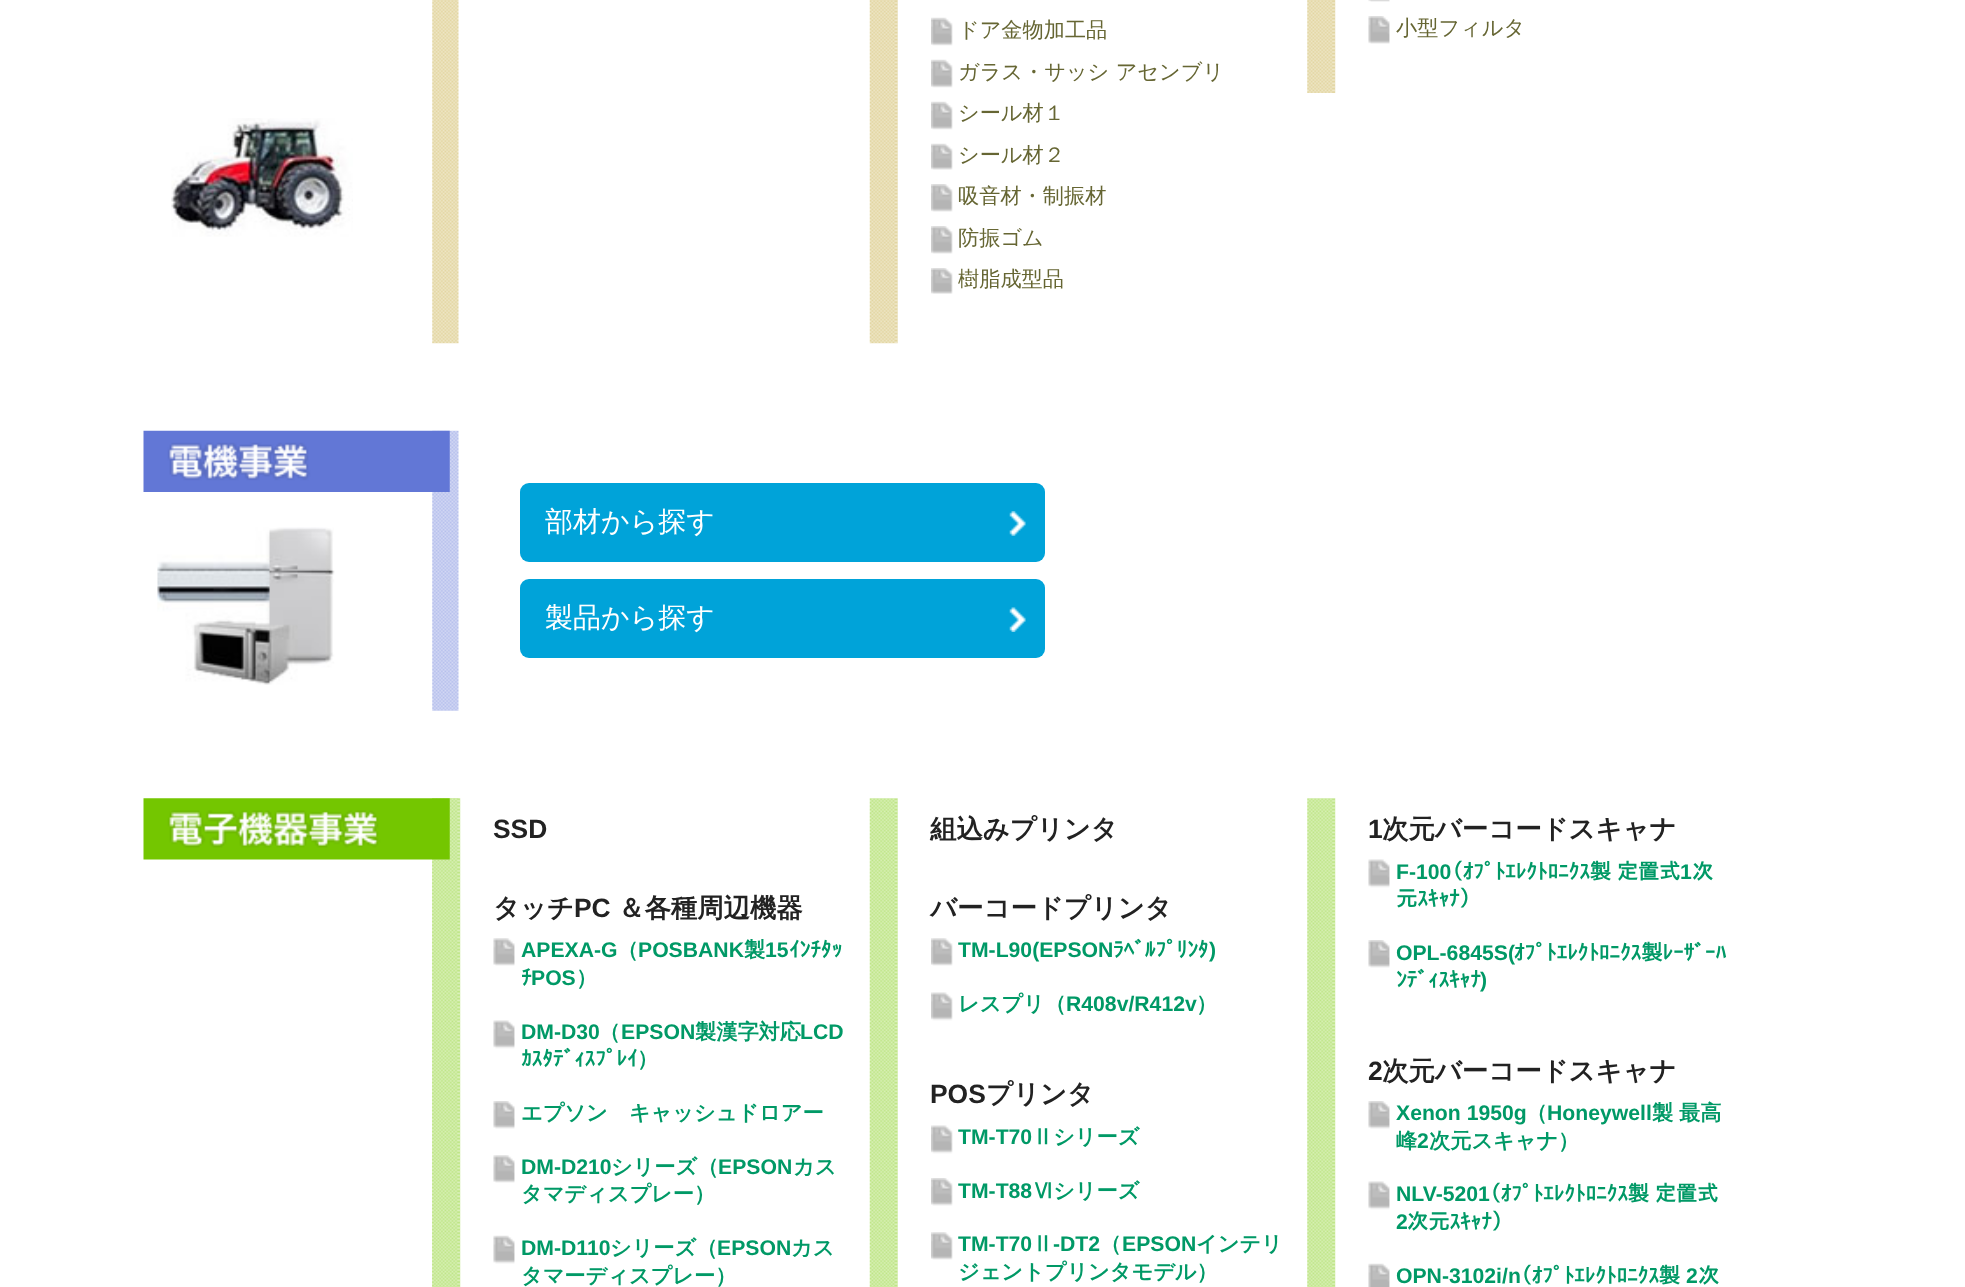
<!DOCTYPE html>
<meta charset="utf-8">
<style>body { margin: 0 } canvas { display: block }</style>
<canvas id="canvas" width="1965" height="1287"></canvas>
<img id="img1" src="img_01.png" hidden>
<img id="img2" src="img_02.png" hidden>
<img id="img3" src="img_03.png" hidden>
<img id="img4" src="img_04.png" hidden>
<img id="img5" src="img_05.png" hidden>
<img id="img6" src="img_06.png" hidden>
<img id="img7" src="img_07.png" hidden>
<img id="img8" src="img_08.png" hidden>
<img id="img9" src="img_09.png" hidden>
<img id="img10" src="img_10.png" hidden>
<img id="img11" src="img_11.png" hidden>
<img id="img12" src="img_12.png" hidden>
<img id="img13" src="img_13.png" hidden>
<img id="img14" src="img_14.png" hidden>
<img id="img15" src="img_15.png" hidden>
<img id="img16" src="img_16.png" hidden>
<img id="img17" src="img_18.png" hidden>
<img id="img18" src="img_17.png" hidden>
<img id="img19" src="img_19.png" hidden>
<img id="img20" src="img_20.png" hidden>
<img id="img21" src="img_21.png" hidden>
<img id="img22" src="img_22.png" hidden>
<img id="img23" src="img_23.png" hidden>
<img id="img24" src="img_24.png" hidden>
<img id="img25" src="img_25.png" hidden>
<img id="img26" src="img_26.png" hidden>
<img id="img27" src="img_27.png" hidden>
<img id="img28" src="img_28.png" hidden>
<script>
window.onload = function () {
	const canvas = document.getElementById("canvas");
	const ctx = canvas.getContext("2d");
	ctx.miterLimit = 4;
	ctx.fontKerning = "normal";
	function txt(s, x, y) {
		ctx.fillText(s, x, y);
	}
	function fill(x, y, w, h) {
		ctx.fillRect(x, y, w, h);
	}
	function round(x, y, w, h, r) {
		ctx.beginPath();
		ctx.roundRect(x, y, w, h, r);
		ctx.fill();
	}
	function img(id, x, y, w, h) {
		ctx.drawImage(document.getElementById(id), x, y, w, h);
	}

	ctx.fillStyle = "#FFFFFF";
	fill(0, 0, 1965, 1287);
	img("img1", 432, 0, 27, 344);
	img("img2", 171, 118, 182, 119);
	img("img3", 869, 0, 29, 344);
	img("img4", 931, 17, 22, 29);
	img("img4", 931, 59, 22, 29);
	img("img4", 931, 101, 22, 29);
	img("img5", 931, 143, 22, 27);
	img("img6", 931, 184, 22, 28);
	img("img6", 931, 226, 22, 28);
	img("img7", 931, 268, 22, 26);
	img("img8", 1307, 0, 29, 93);
	img("img9", 1368, 0, 22, 2);
	img("img10", 1368, 16, 22, 28);
	img("img11", 432, 430, 27, 281);
	img("img12", 143, 430, 307, 62);
	img("img13", 157, 527, 178, 158);
	ctx.fillStyle = "#00A3D9";
	round(520, 483, 525, 79, 9);
	img("img14", 1009, 511, 17, 25);
	round(520, 579, 525, 79, 9);
	img("img15", 1009, 607, 17, 25);
	img("img16", 432, 798, 27, 489);
	img("img17", 432, 798, 29, 489);
	img("img18", 143, 798, 307, 62);
	img("img19", 493, 938, 22, 28);
	img("img20", 493, 1020, 22, 29);
	img("img21", 493, 1101, 22, 28);
	img("img19", 493, 1155, 22, 28);
	img("img22", 493, 1235, 22, 29);
	img("img23", 869, 798, 29, 489);
	img("img24", 931, 938, 22, 28);
	img("img25", 931, 992, 22, 29);
	img("img25", 931, 1125, 22, 29);
	img("img26", 931, 1178, 22, 28);
	img("img24", 931, 1232, 22, 28);
	img("img27", 1307, 798, 29, 489);
	img("img20", 1368, 859, 22, 29);
	img("img21", 1368, 940, 22, 28);
	img("img21", 1368, 1101, 22, 28);
	img("img20", 1368, 1181, 22, 29);
	img("img28", 1368, 1263, 22, 24);
	ctx.font = "500 21.2px WenQuanYi Zen Hei";
	ctx.fillStyle = "#666633";
	txt("ドア金物加工品", 958, 37);
	txt("ガラス・サッシ アセンブリ", 958, 79);
	txt("シール材１", 958, 120);
	txt("シール材２", 958, 162);
	txt("吸音材・制振材", 958, 203);
	txt("防振ゴム", 958, 245);
	txt("樹脂成型品", 958, 286);
	txt("小型フィルタ", 1396, 35);
	ctx.font = "500 28px WenQuanYi Zen Hei";
	ctx.fillStyle = "#FFFFFF";
	txt("部材から探す", 545, 531);
	txt("製品から探す", 545, 627);
	ctx.font = "bold 26.4px Liberation Sans";
	ctx.fillStyle = "#222222";
	txt("SSD", 493, 838);
	ctx.font = "bold 26.4px WenQuanYi Zen Hei";
	txt("タッチ", 493, 917);
	ctx.font = "bold 26.4px Liberation Sans";
	txt("PC", 574, 917);
	ctx.font = "bold 26.4px WenQuanYi Zen Hei";
	txt("＆各種周辺機器", 618, 917);
	ctx.font = "bold 21.2px Liberation Sans";
	ctx.fillStyle = "#009966";
	txt("APEXA-G", 521, 957);
	ctx.font = "bold 21.2px WenQuanYi Zen Hei";
	txt("（", 617, 957);
	ctx.font = "bold 21.2px Liberation Sans";
	txt("POSBANK", 638, 957);
	ctx.font = "bold 21.2px WenQuanYi Zen Hei";
	txt("製", 744, 957);
	ctx.font = "bold 21.2px Liberation Sans";
	txt("15", 765, 957);
	ctx.font = "bold 21.2px IPAPGothic";
	txt("ｲﾝﾁﾀｯ", 789, 957);
	txt("ﾁ", 521, 985);
	ctx.font = "bold 21.2px Liberation Sans";
	txt("POS", 531, 985);
	ctx.font = "bold 21.2px WenQuanYi Zen Hei";
	txt("）", 576, 985);
	ctx.font = "bold 21.2px Liberation Sans";
	txt("DM-D30", 521, 1039);
	ctx.font = "bold 21.2px WenQuanYi Zen Hei";
	txt("（", 599, 1039);
	ctx.font = "bold 21.2px Liberation Sans";
	txt("EPSON", 621, 1039);
	ctx.font = "bold 21.2px WenQuanYi Zen Hei";
	txt("製漢字対応", 695, 1039);
	ctx.font = "bold 21.2px Liberation Sans";
	txt("LCD", 800, 1039);
	ctx.font = "bold 21.2px IPAPGothic";
	txt("ｶｽﾀﾃﾞｨｽﾌﾟﾚｲ", 521, 1066);
	ctx.font = "bold 21.2px WenQuanYi Zen Hei";
	txt("）", 637, 1066);
	txt("エプソン　キャッシュドロアー", 521, 1120);
	ctx.font = "bold 21.2px Liberation Sans";
	txt("DM-D210", 521, 1174);
	ctx.font = "bold 21.2px WenQuanYi Zen Hei";
	txt("シリーズ（", 611, 1174);
	ctx.font = "bold 21.2px Liberation Sans";
	txt("EPSON", 718, 1174);
	ctx.font = "bold 21.2px WenQuanYi Zen Hei";
	txt("カス", 793, 1174);
	txt("タマディスプレー）", 521, 1201);
	ctx.font = "bold 21.2px Liberation Sans";
	txt("DM-D110", 521, 1255);
	ctx.font = "bold 21.2px WenQuanYi Zen Hei";
	txt("シリーズ（", 610, 1255);
	ctx.font = "bold 21.2px Liberation Sans";
	txt("EPSON", 717, 1255);
	ctx.font = "bold 21.2px WenQuanYi Zen Hei";
	txt("カス", 791, 1255);
	txt("タマーディスプレー）", 521, 1283);
	ctx.font = "bold 26.4px WenQuanYi Zen Hei";
	ctx.fillStyle = "#222222";
	txt("組込みプリンタ", 930, 838);
	txt("バーコードプリンタ", 930, 917);
	ctx.font = "bold 21.2px Liberation Sans";
	ctx.fillStyle = "#009966";
	txt("TM-L90(EPSON", 958, 957);
	ctx.font = "bold 21.2px IPAPGothic";
	txt("ﾗﾍﾞﾙﾌﾟﾘﾝﾀ", 1113, 957);
	ctx.font = "bold 21.2px Liberation Sans";
	txt(")", 1209, 957);
	ctx.font = "bold 21.2px WenQuanYi Zen Hei";
	txt("レスプリ（", 958, 1011);
	ctx.font = "bold 21.2px Liberation Sans";
	txt("R408v/R412v", 1066, 1011);
	ctx.font = "bold 21.2px WenQuanYi Zen Hei";
	txt("）", 1196, 1011);
	ctx.font = "bold 26.4px Liberation Sans";
	ctx.fillStyle = "#222222";
	txt("POS", 930, 1103);
	ctx.font = "bold 26.4px WenQuanYi Zen Hei";
	txt("プリンタ", 986, 1103);
	ctx.font = "bold 21.2px Liberation Sans";
	ctx.fillStyle = "#009966";
	txt("TM-T70", 958, 1144);
	ctx.font = "bold 21.2px WenQuanYi Zen Hei";
	txt("Ⅱシリーズ", 1032, 1144);
	ctx.font = "bold 21.2px Liberation Sans";
	txt("TM-T88", 958, 1198);
	ctx.font = "bold 21.2px WenQuanYi Zen Hei";
	txt("Ⅵシリーズ", 1032, 1198);
	ctx.font = "bold 21.2px Liberation Sans";
	txt("TM-T70", 958, 1251);
	ctx.font = "bold 21.2px WenQuanYi Zen Hei";
	txt("Ⅱ", 1032, 1251);
	ctx.font = "bold 21.2px Liberation Sans";
	txt("-DT2", 1053, 1251);
	ctx.font = "bold 21.2px WenQuanYi Zen Hei";
	txt("（", 1100, 1251);
	ctx.font = "bold 21.2px Liberation Sans";
	txt("EPSON", 1122, 1251);
	ctx.font = "bold 21.2px WenQuanYi Zen Hei";
	txt("インテリ", 1196, 1251);
	txt("ジェントプリンタモデル）", 958, 1279);
	ctx.font = "bold 26.4px Liberation Sans";
	ctx.fillStyle = "#222222";
	txt("1", 1368, 838);
	ctx.font = "bold 26.4px WenQuanYi Zen Hei";
	txt("次元バーコードスキャナ", 1382, 838);
	ctx.font = "bold 21.2px Liberation Sans";
	ctx.fillStyle = "#009966";
	txt("F-100", 1396, 879);
	ctx.font = "bold 21.2px IPAPGothic";
	txt("（ｵﾌﾟﾄｴﾚｸﾄﾛﾆｸｽ製 定置式", 1451, 879);
	ctx.font = "bold 21.2px Liberation Sans";
	txt("1", 1680, 879);
	ctx.font = "bold 21.2px IPAPGothic";
	txt("次", 1692, 879);
	txt("元ｽｷｬﾅ）", 1396, 906);
	ctx.font = "bold 21.2px Liberation Sans";
	txt("OPL-6845S(", 1396, 960);
	ctx.font = "bold 21.2px IPAPGothic";
	txt("ｵﾌﾟﾄｴﾚｸﾄﾛﾆｸｽ製ﾚｰｻﾞｰﾊ", 1514, 960);
	txt("ﾝﾃﾞｨｽｷｬﾅ", 1396, 987);
	ctx.font = "bold 21.2px Liberation Sans";
	txt(")", 1480, 987);
	ctx.font = "bold 26.4px Liberation Sans";
	ctx.fillStyle = "#222222";
	txt("2", 1368, 1080);
	ctx.font = "bold 26.4px WenQuanYi Zen Hei";
	txt("次元バーコードスキャナ", 1382, 1080);
	ctx.font = "bold 21.2px Liberation Sans";
	ctx.fillStyle = "#009966";
	txt("Xenon 1950g", 1396, 1120);
	ctx.font = "bold 21.2px WenQuanYi Zen Hei";
	txt("（", 1526, 1120);
	ctx.font = "bold 21.2px Liberation Sans";
	txt("Honeywell", 1547, 1120);
	ctx.font = "bold 21.2px WenQuanYi Zen Hei";
	txt("製", 1652, 1120);
	txt("最高", 1679, 1120);
	txt("峰", 1396, 1148);
	ctx.font = "bold 21.2px Liberation Sans";
	txt("2", 1417, 1148);
	ctx.font = "bold 21.2px WenQuanYi Zen Hei";
	txt("次元スキャナ）", 1429, 1148);
	ctx.font = "bold 21.2px Liberation Sans";
	txt("NLV-5201", 1396, 1201);
	ctx.font = "bold 21.2px IPAPGothic";
	txt("（ｵﾌﾟﾄｴﾚｸﾄﾛﾆｸｽ製 定置式", 1489, 1201);
	ctx.font = "bold 21.2px Liberation Sans";
	txt("2", 1396, 1229);
	ctx.font = "bold 21.2px IPAPGothic";
	txt("次元ｽｷｬﾅ）", 1407, 1229);
	ctx.font = "bold 21.2px Liberation Sans";
	txt("OPN-3102i/n", 1396, 1283);
	ctx.font = "bold 21.2px IPAPGothic";
	txt("（ｵﾌﾟﾄｴﾚｸﾄﾛﾆｸｽ製", 1520, 1283);
	ctx.font = "bold 21.2px Liberation Sans";
	txt("2", 1686, 1283);
	ctx.font = "bold 21.2px IPAPGothic";
	txt("次", 1698, 1283);
};
</script>
